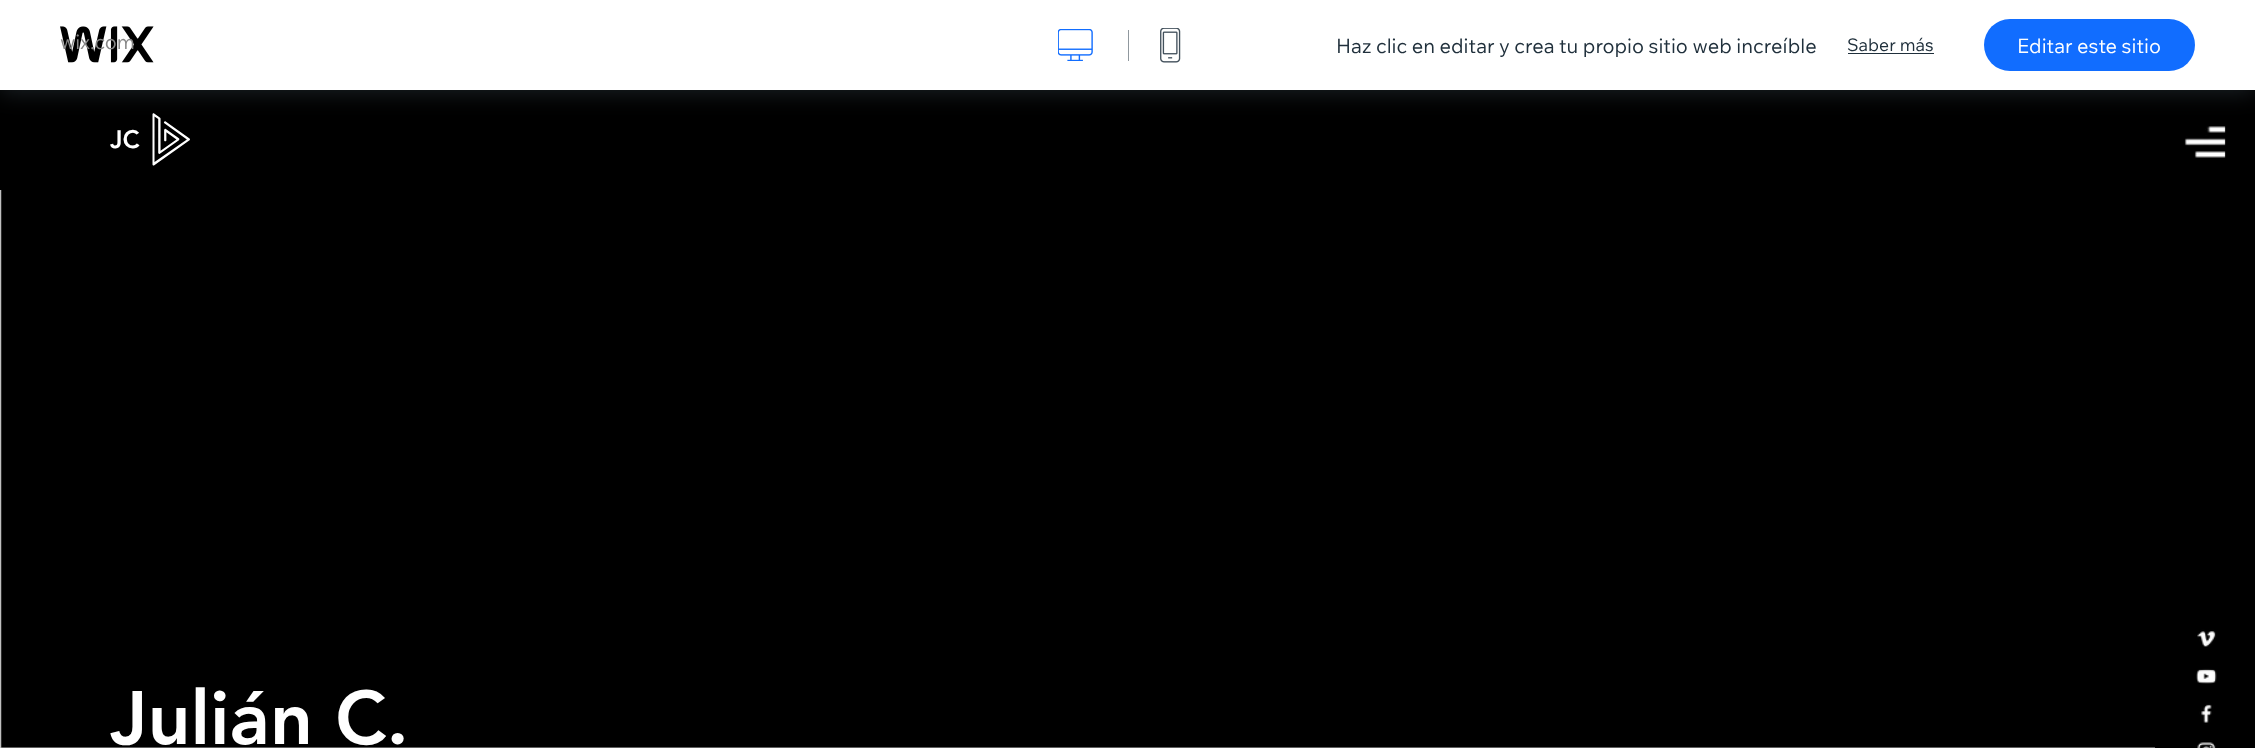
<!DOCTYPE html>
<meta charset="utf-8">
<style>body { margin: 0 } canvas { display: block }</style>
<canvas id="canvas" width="2255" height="748"></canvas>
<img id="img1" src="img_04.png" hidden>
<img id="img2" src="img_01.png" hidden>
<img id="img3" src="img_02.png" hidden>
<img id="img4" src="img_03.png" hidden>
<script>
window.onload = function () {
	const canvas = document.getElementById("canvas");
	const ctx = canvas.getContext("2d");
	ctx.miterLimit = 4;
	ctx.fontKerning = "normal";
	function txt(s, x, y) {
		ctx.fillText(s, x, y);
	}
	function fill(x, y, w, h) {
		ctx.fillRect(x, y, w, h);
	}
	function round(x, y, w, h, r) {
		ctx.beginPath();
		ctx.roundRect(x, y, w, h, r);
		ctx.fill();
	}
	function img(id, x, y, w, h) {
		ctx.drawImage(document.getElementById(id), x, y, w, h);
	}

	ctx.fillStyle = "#FFFFFF";
	fill(0, 0, 2255, 748);
	img("img1", 0, 90, 2255, 658);
	ctx.fillStyle = "rgba(129, 162, 182, 0.2)";
	ctx.filter = "blur(11px)";
	ctx.beginPath();
	ctx.rect(0, 3, 2255, 90);
	ctx.fill();
	ctx.filter = "none";
	ctx.fillStyle = "#FFFFFF";
	fill(0, 0, 2255, 90);
	img("img2", 60, 26, 94, 37);
	img("img3", 1058, 29, 35, 32);
	ctx.fillStyle = "#90989E";
	fill(1128, 30, 1, 31);
	img("img4", 1160, 28, 21, 35);
	ctx.fillStyle = "#20303C";
	fill(1848, 53, 86, 1);
	ctx.fillStyle = "#116DFF";
	round(1984, 19, 211, 52, 26);
	ctx.font = "20px Wix Madefor Text";
	ctx.fillStyle = "#878787";
	txt("wix.com", 60, 49);
	ctx.fillStyle = "#20303C";
	txt("Haz clic en editar y crea tu propio sitio web increíble", 1336, 53);
	ctx.font = "17.5px Wix Madefor Text";
	txt("Saber más", 1847, 51);
	ctx.font = "20px Wix Madefor Text";
	ctx.fillStyle = "#FFFFFF";
	txt("Editar este sitio", 2017, 53);
};
</script>
